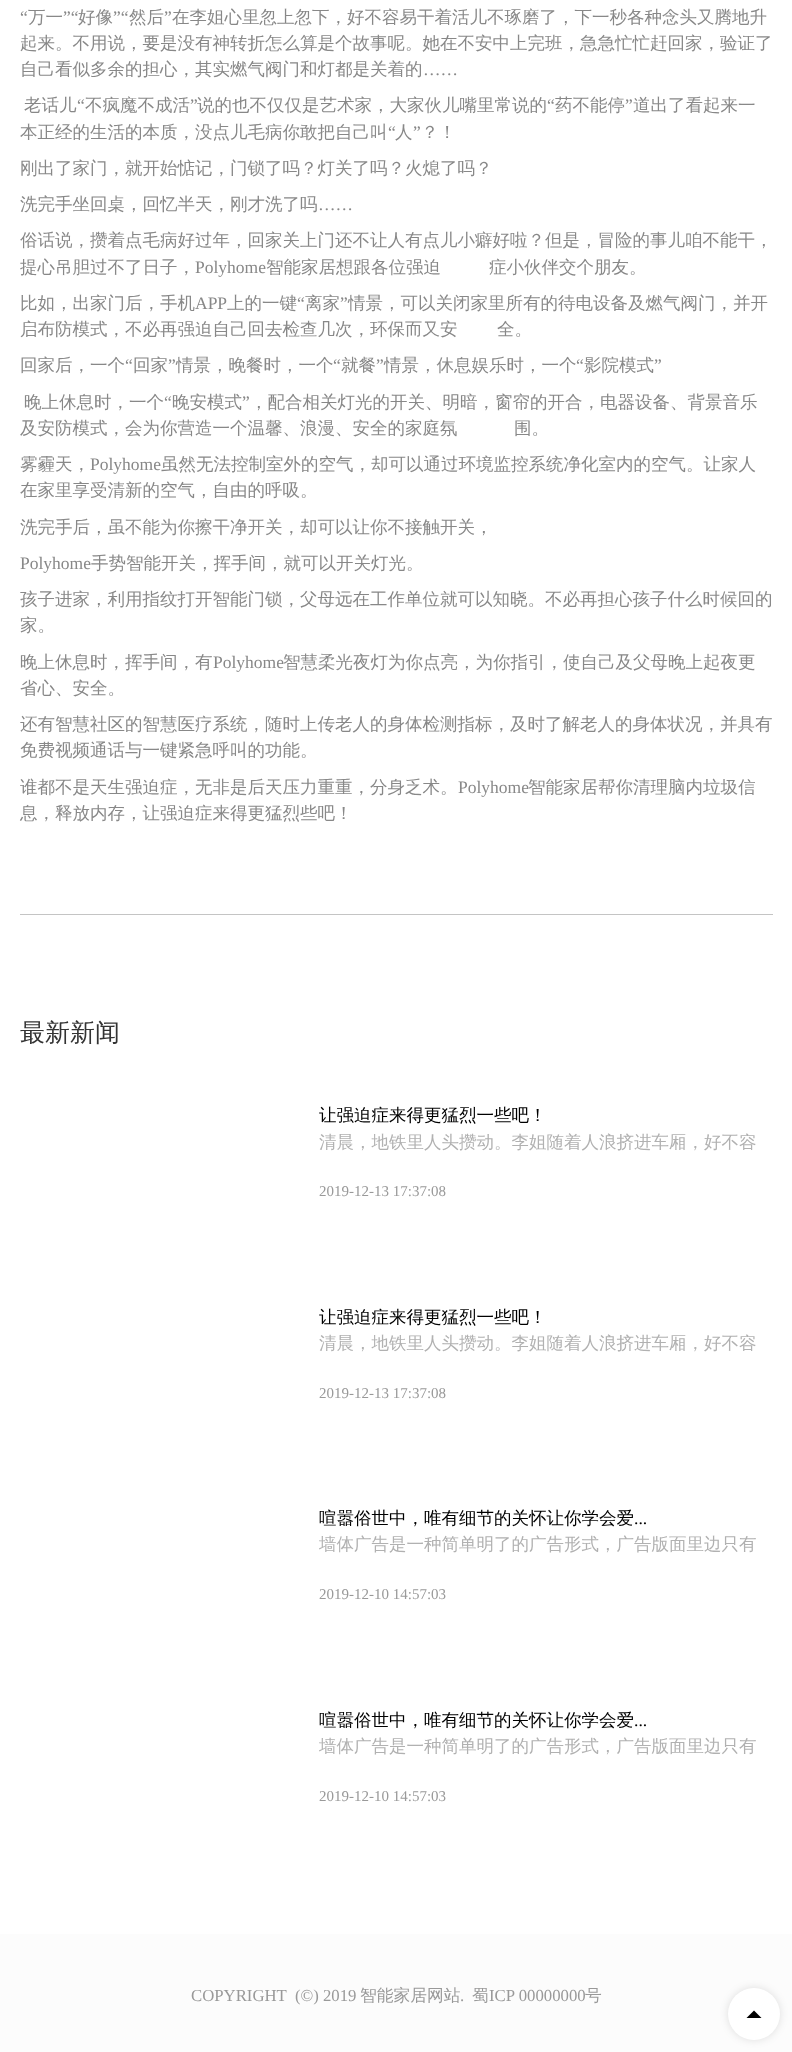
<!DOCTYPE html>
<meta charset="utf-8">
<style>body { margin: 0 } canvas { display: block }</style>
<canvas id="canvas" width="792" height="2052"></canvas>
<script>
window.onload = function () {
	const canvas = document.getElementById("canvas");
	const ctx = canvas.getContext("2d");
	ctx.miterLimit = 4;
	ctx.fontKerning = "normal";
	function txt(s, x, y) {
		ctx.fillText(s, x, y);
	}
	function fill(x, y, w, h) {
		ctx.fillRect(x, y, w, h);
	}

	ctx.fillStyle = "#FFFFFF";
	fill(0, 0, 792, 2052);
	ctx.fillStyle = "#C4C4C4";
	fill(20, 914, 753, 1);
	ctx.fillStyle = "#FCFCFC";
	fill(0, 1934, 792, 118);
	ctx.fillStyle = "rgba(0, 0, 0, 0.12)";
	ctx.filter = "blur(4px)";
	ctx.beginPath();
	ctx.roundRect(728, 1988, 52, 52, 26);
	ctx.fill();
	ctx.filter = "none";
	ctx.fillStyle = "#FFFFFF";
	ctx.beginPath();
	ctx.arc(754, 2014, 26, 0, Math.PI * 2);
	ctx.fill();
	ctx.fillStyle = "#000000";
	ctx.beginPath();
	ctx.moveTo(761.5, 2018);
	ctx.lineTo(746.5, 2018);
	ctx.lineTo(754, 2010.5);
	ctx.closePath();
	ctx.fill();
	ctx.font = "17.5px Liberation Serif";
	ctx.fillStyle = "#888888";
	txt("“", 20, 23);
	ctx.font = "500 17.5px WenQuanYi Zen Hei";
	txt("万一", 28, 23);
	ctx.font = "17.5px Liberation Serif";
	txt("”“", 63, 23);
	ctx.font = "500 17.5px WenQuanYi Zen Hei";
	txt("好像", 78, 23);
	ctx.font = "17.5px Liberation Serif";
	txt("”“", 113, 23);
	ctx.font = "500 17.5px WenQuanYi Zen Hei";
	txt("然后", 129, 23);
	ctx.font = "17.5px Liberation Serif";
	txt("”", 164, 23);
	ctx.font = "500 17.5px WenQuanYi Zen Hei";
	txt("在李姐心里忽上忽下，好不容易干着活儿不琢磨了，下一秒各种念头又腾地升", 172, 23);
	txt("起来。不用说，要是没有神转折怎么算是个故事呢。她在不安中上完班，急急忙忙赶回家，验证了", 20, 49);
	txt("自己看似多余的担心，其实燃气阀门和灯都是关着的", 20, 75);
	ctx.font = "17.5px Liberation Serif";
	txt("……", 423, 75);
	ctx.font = "500 17.5px WenQuanYi Zen Hei";
	txt("老话儿", 24, 111);
	ctx.font = "17.5px Liberation Serif";
	txt("“", 77, 111);
	ctx.font = "500 17.5px WenQuanYi Zen Hei";
	txt("不疯魔不成活", 85, 111);
	ctx.font = "17.5px Liberation Serif";
	txt("”", 190, 111);
	ctx.font = "500 17.5px WenQuanYi Zen Hei";
	txt("说的也不仅仅是艺术家，大家伙儿嘴里常说的", 197, 111);
	ctx.font = "17.5px Liberation Serif";
	txt("“", 547, 111);
	ctx.font = "500 17.5px WenQuanYi Zen Hei";
	txt("药不能停", 555, 111);
	ctx.font = "17.5px Liberation Serif";
	txt("”", 625, 111);
	ctx.font = "500 17.5px WenQuanYi Zen Hei";
	txt("道出了看起来一", 633, 111);
	txt("本正经的生活的本质，没点儿毛病你敢把自己叫", 20, 138);
	ctx.font = "17.5px Liberation Serif";
	txt("“", 388, 138);
	ctx.font = "500 17.5px WenQuanYi Zen Hei";
	txt("人", 395, 138);
	ctx.font = "17.5px Liberation Serif";
	txt("”", 413, 138);
	ctx.font = "500 17.5px WenQuanYi Zen Hei";
	txt("？！", 421, 138);
	txt("刚出了家门，就开始惦记，门锁了吗？灯关了吗？火熄了吗？", 20, 174);
	txt("洗完手坐回桌，回忆半天，刚才洗了吗", 20, 210);
	ctx.font = "17.5px Liberation Serif";
	txt("……", 318, 210);
	ctx.font = "500 17.5px WenQuanYi Zen Hei";
	txt("俗话说，攒着点毛病好过年，回家关上门还不让人有点儿小癖好啦？但是，冒险的事儿咱不能干，", 20, 246);
	txt("提心吊胆过不了日子，", 20, 273);
	ctx.font = "17.5px Liberation Serif";
	txt("Polyhome", 195, 273);
	ctx.font = "500 17.5px WenQuanYi Zen Hei";
	txt("智能家居想跟各位强迫", 266, 273);
	txt("症小伙伴交个朋友。", 489, 273);
	txt("比如，出家门后，手机", 20, 309);
	ctx.font = "17.5px Liberation Serif";
	txt("APP", 195, 309);
	ctx.font = "500 17.5px WenQuanYi Zen Hei";
	txt("上的一键", 227, 309);
	ctx.font = "17.5px Liberation Serif";
	txt("“", 297, 309);
	ctx.font = "500 17.5px WenQuanYi Zen Hei";
	txt("离家", 305, 309);
	ctx.font = "17.5px Liberation Serif";
	txt("”", 340, 309);
	ctx.font = "500 17.5px WenQuanYi Zen Hei";
	txt("情景，可以关闭家里所有的待电设备及燃气阀门，并开", 348, 309);
	txt("启布防模式，不必再强迫自己回去检查几次，环保而又安", 20, 335);
	txt("全。", 497, 335);
	txt("回家后，一个", 20, 371);
	ctx.font = "17.5px Liberation Serif";
	txt("“", 125, 371);
	ctx.font = "500 17.5px WenQuanYi Zen Hei";
	txt("回家", 133, 371);
	ctx.font = "17.5px Liberation Serif";
	txt("”", 168, 371);
	ctx.font = "500 17.5px WenQuanYi Zen Hei";
	txt("情景，晚餐时，一个", 176, 371);
	ctx.font = "17.5px Liberation Serif";
	txt("“", 333, 371);
	ctx.font = "500 17.5px WenQuanYi Zen Hei";
	txt("就餐", 341, 371);
	ctx.font = "17.5px Liberation Serif";
	txt("”", 376, 371);
	ctx.font = "500 17.5px WenQuanYi Zen Hei";
	txt("情景，休息娱乐时，一个", 384, 371);
	ctx.font = "17.5px Liberation Serif";
	txt("“", 576, 371);
	ctx.font = "500 17.5px WenQuanYi Zen Hei";
	txt("影院模式", 584, 371);
	ctx.font = "17.5px Liberation Serif";
	txt("”", 654, 371);
	ctx.font = "500 17.5px WenQuanYi Zen Hei";
	txt("晚上休息时，一个", 24, 408);
	ctx.font = "17.5px Liberation Serif";
	txt("“", 164, 408);
	ctx.font = "500 17.5px WenQuanYi Zen Hei";
	txt("晚安模式", 172, 408);
	ctx.font = "17.5px Liberation Serif";
	txt("”", 242, 408);
	ctx.font = "500 17.5px WenQuanYi Zen Hei";
	txt("，配合相关灯光的开关、明暗，窗帘的开合，电器设备、背景音乐", 250, 408);
	txt("及安防模式，会为你营造一个温馨、浪漫、安全的家庭氛", 20, 434);
	txt("围。", 514, 434);
	txt("雾霾天，", 20, 470);
	ctx.font = "17.5px Liberation Serif";
	txt("Polyhome", 90, 470);
	ctx.font = "500 17.5px WenQuanYi Zen Hei";
	txt("虽然无法控制室外的空气，却可以通过环境监控系统净化室内的空气。让家人", 161, 470);
	txt("在家里享受清新的空气，自由的呼吸。", 20, 496);
	txt("洗完手后，虽不能为你擦干净开关，却可以让你不接触开关，", 20, 533);
	ctx.font = "17.5px Liberation Serif";
	txt("Polyhome", 20, 569);
	ctx.font = "500 17.5px WenQuanYi Zen Hei";
	txt("手势智能开关，挥手间，就可以开关灯光。", 91, 569);
	txt("孩子进家，利用指纹打开智能门锁，父母远在工作单位就可以知晓。不必再担心孩子什么时候回的", 20, 605);
	txt("家。", 20, 631);
	txt("晚上休息时，挥手间，有", 20, 668);
	ctx.font = "17.5px Liberation Serif";
	txt("Polyhome", 213, 668);
	ctx.font = "500 17.5px WenQuanYi Zen Hei";
	txt("智慧柔光夜灯为你点亮，为你指引，使自己及父母晚上起夜更", 283, 668);
	txt("省心、安全。", 20, 694);
	txt("还有智慧社区的智慧医疗系统，随时上传老人的身体检测指标，及时了解老人的身体状况，并具有", 20, 730);
	txt("免费视频通话与一键紧急呼叫的功能。", 20, 756);
	txt("谁都不是天生强迫症，无非是后天压力重重，分身乏术。", 20, 793);
	ctx.font = "17.5px Liberation Serif";
	txt("Polyhome", 458, 793);
	ctx.font = "500 17.5px WenQuanYi Zen Hei";
	txt("智能家居帮你清理脑内垃圾信", 528, 793);
	txt("息，释放内存，让强迫症来得更猛烈些吧！", 20, 819);
	ctx.font = "500 25px WenQuanYi Zen Hei";
	ctx.fillStyle = "#333333";
	txt("最新新闻", 20, 1041);
	ctx.font = "500 17.5px WenQuanYi Zen Hei";
	ctx.fillStyle = "#000000";
	txt("让强迫症来得更猛烈一些吧！", 319, 1121);
	ctx.fillStyle = "#B1B1B1";
	txt("清晨，地铁里人头攒动。李姐随着人浪挤进车厢，好不容", 319, 1148);
	ctx.font = "15px Liberation Serif";
	ctx.fillStyle = "#999999";
	txt("2019-12-13 17:37:08", 319, 1196);
	ctx.font = "500 17.5px WenQuanYi Zen Hei";
	ctx.fillStyle = "#000000";
	txt("让强迫症来得更猛烈一些吧！", 319, 1323);
	ctx.fillStyle = "#B1B1B1";
	txt("清晨，地铁里人头攒动。李姐随着人浪挤进车厢，好不容", 319, 1349);
	ctx.font = "15px Liberation Serif";
	ctx.fillStyle = "#999999";
	txt("2019-12-13 17:37:08", 319, 1398);
	ctx.font = "500 17.5px WenQuanYi Zen Hei";
	ctx.fillStyle = "#000000";
	txt("喧嚣俗世中，唯有细节的关怀让你学会爱", 319, 1524);
	ctx.font = "17.5px Liberation Serif";
	txt("...", 634, 1524);
	ctx.font = "500 17.5px WenQuanYi Zen Hei";
	ctx.fillStyle = "#B1B1B1";
	txt("墙体广告是一种简单明了的广告形式，广告版面里边只有", 319, 1550);
	ctx.font = "15px Liberation Serif";
	ctx.fillStyle = "#999999";
	txt("2019-12-10 14:57:03", 319, 1599);
	ctx.font = "500 17.5px WenQuanYi Zen Hei";
	ctx.fillStyle = "#000000";
	txt("喧嚣俗世中，唯有细节的关怀让你学会爱", 319, 1726);
	ctx.font = "17.5px Liberation Serif";
	txt("...", 634, 1726);
	ctx.font = "500 17.5px WenQuanYi Zen Hei";
	ctx.fillStyle = "#B1B1B1";
	txt("墙体广告是一种简单明了的广告形式，广告版面里边只有", 319, 1752);
	ctx.font = "15px Liberation Serif";
	ctx.fillStyle = "#999999";
	txt("2019-12-10 14:57:03", 319, 1801);
	ctx.font = "16.75px Liberation Serif";
	txt("COPYRIGHT  (©) 2019", 191, 2001);
	ctx.font = "500 16.75px WenQuanYi Zen Hei";
	txt("智能家居网站", 360, 2001);
	ctx.font = "16.75px Liberation Serif";
	txt(".", 460, 2001);
	ctx.font = "500 16.75px WenQuanYi Zen Hei";
	txt("蜀", 472, 2001);
	ctx.font = "16.75px Liberation Serif";
	txt("ICP 00000000", 489, 2001);
	ctx.font = "500 16.75px WenQuanYi Zen Hei";
	txt("号", 585, 2001);
};
</script>
